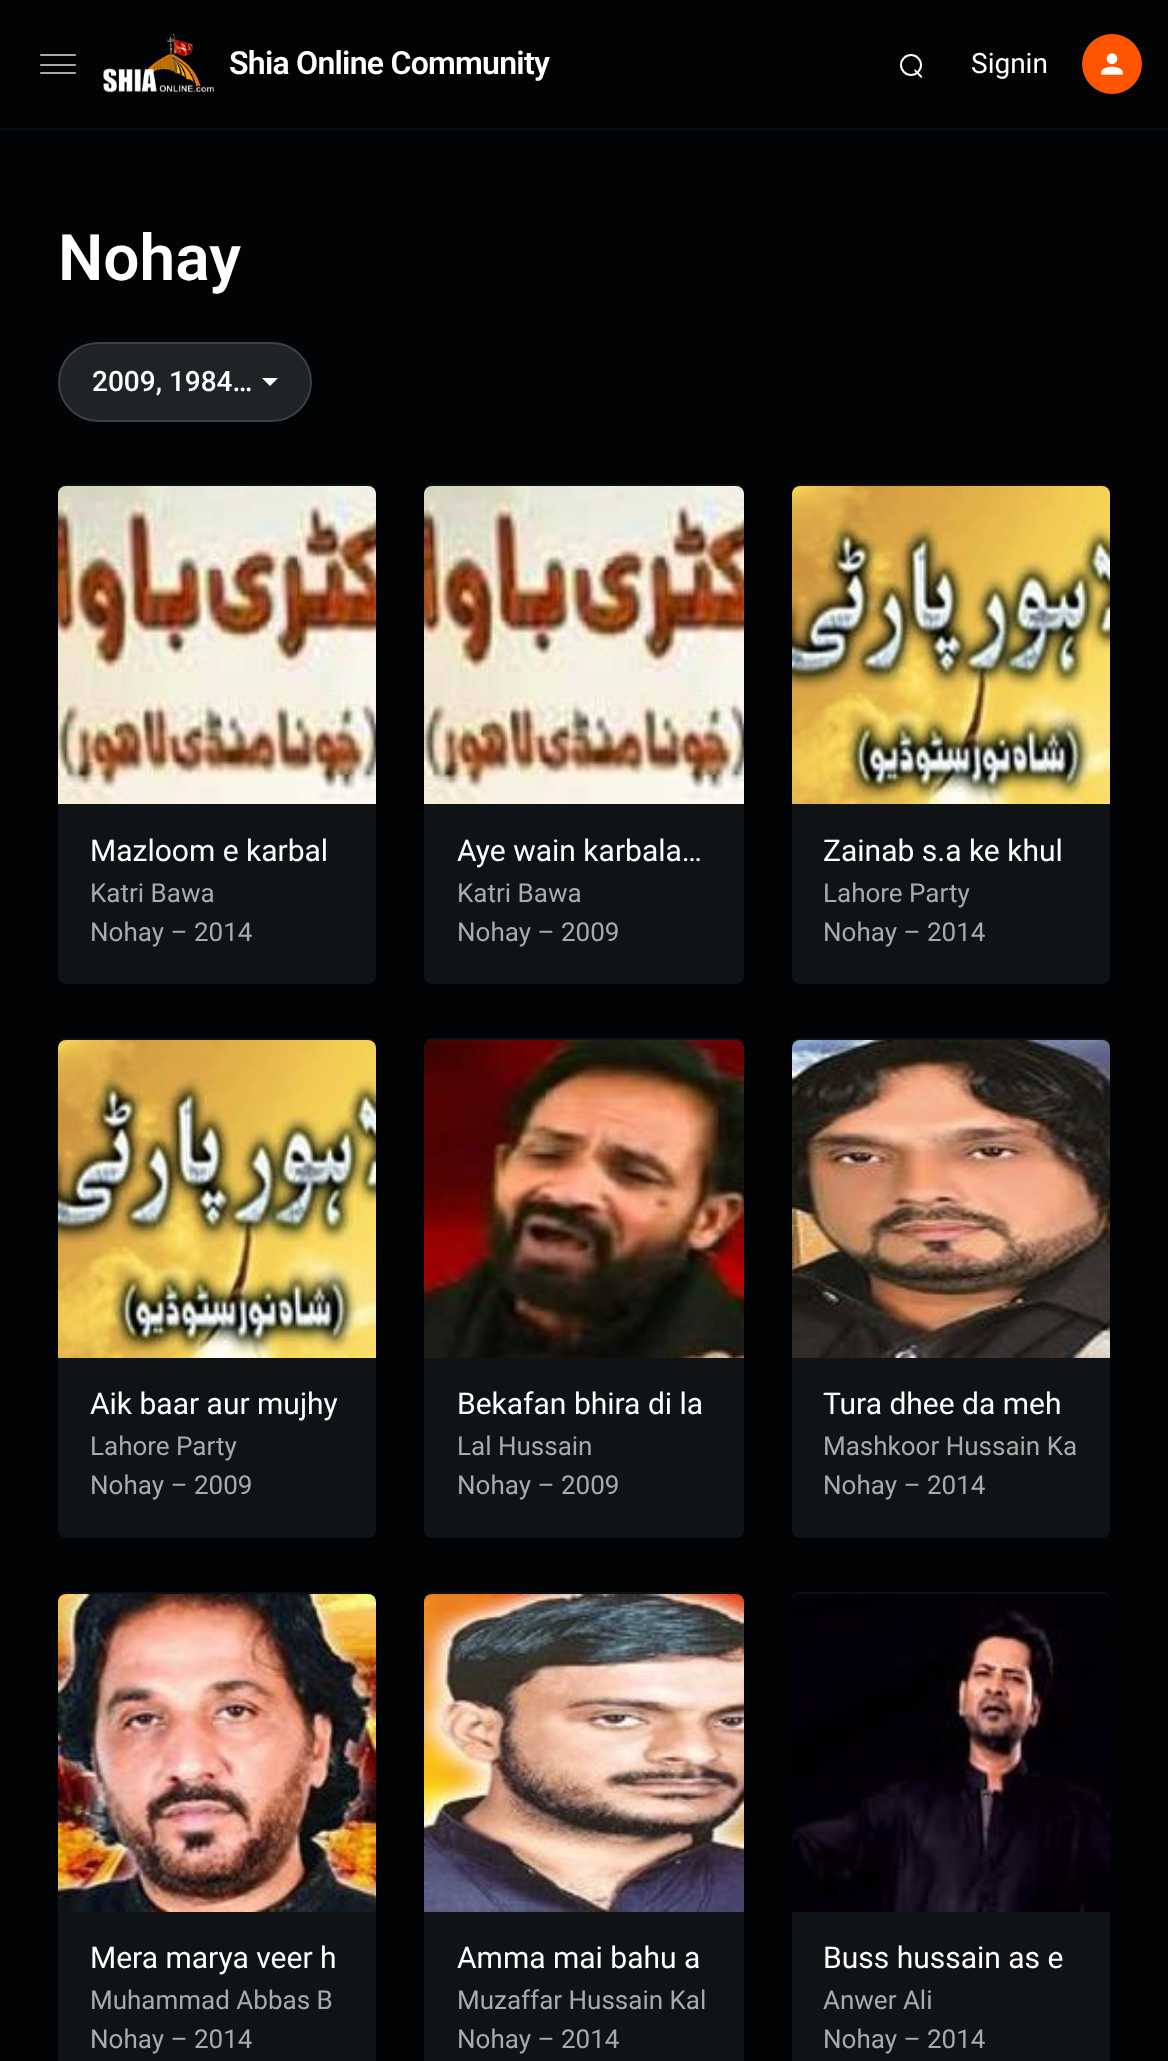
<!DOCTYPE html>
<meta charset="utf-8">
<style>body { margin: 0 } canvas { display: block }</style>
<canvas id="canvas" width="1168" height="2061"></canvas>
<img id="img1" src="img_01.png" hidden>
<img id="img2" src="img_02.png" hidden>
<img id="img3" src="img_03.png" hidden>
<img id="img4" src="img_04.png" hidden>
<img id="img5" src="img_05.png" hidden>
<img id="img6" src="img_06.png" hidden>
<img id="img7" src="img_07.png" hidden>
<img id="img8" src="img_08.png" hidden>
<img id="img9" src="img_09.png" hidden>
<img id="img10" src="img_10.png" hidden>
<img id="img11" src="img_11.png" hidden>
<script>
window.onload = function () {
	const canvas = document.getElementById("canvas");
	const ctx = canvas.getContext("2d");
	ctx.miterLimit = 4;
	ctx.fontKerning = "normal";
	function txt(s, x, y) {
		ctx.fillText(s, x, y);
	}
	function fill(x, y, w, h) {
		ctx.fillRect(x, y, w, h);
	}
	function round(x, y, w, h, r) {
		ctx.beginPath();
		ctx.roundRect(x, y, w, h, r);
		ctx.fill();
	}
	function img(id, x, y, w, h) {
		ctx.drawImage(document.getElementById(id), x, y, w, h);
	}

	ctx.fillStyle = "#010305";
	fill(0, 0, 1168, 2061);
	ctx.save();
	ctx.beginPath();
	ctx.rect(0, 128, 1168, 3);
	ctx.clip();
	ctx.fillStyle = "rgba(130, 140, 150, 0.1)";
	ctx.filter = "blur(1px)";
	ctx.beginPath();
	ctx.rect(0, 2, 1168, 128);
	ctx.fill();
	ctx.filter = "none";
	ctx.restore();
	ctx.fillStyle = "#AAAAAA";
	round(40, 64, 36, 2, 1);
	round(40, 54, 36, 2, 1);
	round(40, 72, 36, 2, 1);
	img("img1", 103, 33, 112, 60);
	ctx.beginPath();
	ctx.arc(911, 65, 10, 0, Math.PI * 2);
	ctx.strokeStyle = "#FFFFFF";
	ctx.lineWidth = 2;
	ctx.stroke();
	ctx.fillStyle = "#FFFFFF";
	ctx.beginPath();
	ctx.moveTo(916, 70);
	ctx.lineTo(921, 75);
	ctx.bezierCurveTo(923.5, 77.5, 922, 79, 919.5, 76.5);
	ctx.lineTo(914.5, 71);
	ctx.bezierCurveTo(914, 70, 915, 69, 916, 70);
	ctx.closePath();
	ctx.fill();
	ctx.fillStyle = "#FF5500";
	ctx.beginPath();
	ctx.arc(1112, 64, 30, 0, Math.PI * 2);
	ctx.fill();
	img("img2", 1101, 53, 22, 22);
	ctx.fillStyle = "#202326";
	round(58, 342, 254, 80, 40);
	ctx.beginPath();
	ctx.roundRect(59, 343, 252, 78, 39);
	ctx.strokeStyle = "rgba(150, 155, 160, 0.25)";
	ctx.stroke();
	ctx.fillStyle = "#FFFFFF";
	ctx.beginPath();
	ctx.moveTo(262, 378);
	ctx.lineTo(278, 378);
	ctx.lineTo(270, 386);
	ctx.closePath();
	ctx.fill();
	ctx.fillStyle = "#0D1013";
	ctx.beginPath();
	ctx.moveTo(66, 484);
	ctx.bezierCurveTo(60, 484, 58, 489, 58, 494);
	ctx.bezierCurveTo(58, 490, 62, 486, 66, 486);
	ctx.lineTo(368, 486);
	ctx.bezierCurveTo(372, 486, 376, 490, 376, 494);
	ctx.bezierCurveTo(376, 489, 374, 484, 368, 484);
	ctx.closePath();
	ctx.fill();
	ctx.fillStyle = "#101316";
	round(58, 486, 318, 498, 8);
	img("img3", 58, 486, 318, 318);
	ctx.fillStyle = "#0D1013";
	ctx.beginPath();
	ctx.moveTo(432, 484);
	ctx.bezierCurveTo(426, 484, 424, 489, 424, 494);
	ctx.bezierCurveTo(424, 490, 428, 486, 432, 486);
	ctx.lineTo(736, 486);
	ctx.bezierCurveTo(740, 486, 744, 490, 744, 494);
	ctx.bezierCurveTo(744, 489, 742, 484, 736, 484);
	ctx.closePath();
	ctx.fill();
	ctx.fillStyle = "#101316";
	round(424, 486, 320, 498, 8);
	img("img4", 424, 486, 320, 318);
	ctx.fillStyle = "#0D1013";
	ctx.beginPath();
	ctx.moveTo(800, 484);
	ctx.bezierCurveTo(794, 484, 792, 489, 792, 494);
	ctx.bezierCurveTo(792, 490, 796, 486, 800, 486);
	ctx.lineTo(1102, 486);
	ctx.bezierCurveTo(1106, 486, 1110, 490, 1110, 494);
	ctx.bezierCurveTo(1110, 489, 1108, 484, 1102, 484);
	ctx.closePath();
	ctx.fill();
	ctx.fillStyle = "#101316";
	round(792, 486, 318, 498, 8);
	img("img5", 792, 486, 318, 318);
	ctx.fillStyle = "#0D1013";
	ctx.beginPath();
	ctx.moveTo(66, 1038);
	ctx.bezierCurveTo(60, 1038, 58, 1043, 58, 1048);
	ctx.bezierCurveTo(58, 1044, 62, 1040, 66, 1040);
	ctx.lineTo(368, 1040);
	ctx.bezierCurveTo(372, 1040, 376, 1044, 376, 1048);
	ctx.bezierCurveTo(376, 1043, 374, 1038, 368, 1038);
	ctx.closePath();
	ctx.fill();
	ctx.fillStyle = "#101316";
	round(58, 1040, 318, 498, 8);
	img("img6", 58, 1040, 318, 318);
	ctx.fillStyle = "#0D1013";
	ctx.beginPath();
	ctx.moveTo(432, 1038);
	ctx.bezierCurveTo(426, 1038, 424, 1043, 424, 1048);
	ctx.bezierCurveTo(424, 1044, 428, 1040, 432, 1040);
	ctx.lineTo(736, 1040);
	ctx.bezierCurveTo(740, 1040, 744, 1044, 744, 1048);
	ctx.bezierCurveTo(744, 1043, 742, 1038, 736, 1038);
	ctx.closePath();
	ctx.fill();
	ctx.fillStyle = "#101316";
	round(424, 1040, 320, 498, 8);
	img("img7", 424, 1040, 320, 318);
	ctx.fillStyle = "#0D1013";
	ctx.beginPath();
	ctx.moveTo(800, 1038);
	ctx.bezierCurveTo(794, 1038, 792, 1043, 792, 1048);
	ctx.bezierCurveTo(792, 1044, 796, 1040, 800, 1040);
	ctx.lineTo(1102, 1040);
	ctx.bezierCurveTo(1106, 1040, 1110, 1044, 1110, 1048);
	ctx.bezierCurveTo(1110, 1043, 1108, 1038, 1102, 1038);
	ctx.closePath();
	ctx.fill();
	ctx.fillStyle = "#101316";
	round(792, 1040, 318, 498, 8);
	img("img8", 792, 1040, 318, 318);
	ctx.fillStyle = "#0D1013";
	ctx.beginPath();
	ctx.moveTo(66, 1592);
	ctx.bezierCurveTo(60, 1592, 58, 1597, 58, 1602);
	ctx.bezierCurveTo(58, 1598, 62, 1594, 66, 1594);
	ctx.lineTo(368, 1594);
	ctx.bezierCurveTo(372, 1594, 376, 1598, 376, 1602);
	ctx.bezierCurveTo(376, 1597, 374, 1592, 368, 1592);
	ctx.closePath();
	ctx.fill();
	ctx.fillStyle = "#101316";
	round(58, 1594, 318, 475, 8);
	img("img9", 58, 1594, 318, 318);
	ctx.fillStyle = "#0D1013";
	ctx.beginPath();
	ctx.moveTo(432, 1592);
	ctx.bezierCurveTo(426, 1592, 424, 1597, 424, 1602);
	ctx.bezierCurveTo(424, 1598, 428, 1594, 432, 1594);
	ctx.lineTo(736, 1594);
	ctx.bezierCurveTo(740, 1594, 744, 1598, 744, 1602);
	ctx.bezierCurveTo(744, 1597, 742, 1592, 736, 1592);
	ctx.closePath();
	ctx.fill();
	ctx.fillStyle = "#101316";
	round(424, 1594, 320, 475, 8);
	img("img10", 424, 1594, 320, 318);
	ctx.fillStyle = "#0D1013";
	ctx.beginPath();
	ctx.moveTo(800, 1592);
	ctx.bezierCurveTo(794, 1592, 792, 1597, 792, 1602);
	ctx.bezierCurveTo(792, 1598, 796, 1594, 800, 1594);
	ctx.lineTo(1102, 1594);
	ctx.bezierCurveTo(1106, 1594, 1110, 1598, 1110, 1602);
	ctx.bezierCurveTo(1110, 1597, 1108, 1592, 1102, 1592);
	ctx.closePath();
	ctx.fill();
	ctx.fillStyle = "#101316";
	round(792, 1594, 318, 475, 8);
	img("img11", 792, 1594, 318, 318);
	ctx.letterSpacing = "-0.75px";
	ctx.font = "600 32px Roboto";
	ctx.fillStyle = "#FFFFFF";
	txt("Shia Online Community", 229, 74);
	ctx.letterSpacing = "0px";
	ctx.font = "28px Roboto";
	txt("Signin", 971, 73);
	ctx.font = "600 64px Roboto";
	txt("Nohay", 58, 280);
	ctx.font = "500 28px Roboto";
	txt("2009, 1984…", 92, 391);
	ctx.font = "30px Roboto";
	txt("Mazloom e karbal", 90, 861);
	ctx.font = "26px Roboto";
	ctx.fillStyle = "#AAAAAA";
	txt("Katri Bawa", 90, 902);
	txt("Nohay – 2014", 90, 941);
	ctx.font = "30px Roboto";
	ctx.fillStyle = "#FFFFFF";
	txt("Aye wain karbala…", 457, 861);
	ctx.font = "26px Roboto";
	ctx.fillStyle = "#AAAAAA";
	txt("Katri Bawa", 457, 902);
	txt("Nohay – 2009", 457, 941);
	ctx.font = "30px Roboto";
	ctx.fillStyle = "#FFFFFF";
	txt("Zainab s.a ke khul", 823, 861);
	ctx.font = "26px Roboto";
	ctx.fillStyle = "#AAAAAA";
	txt("Lahore Party", 823, 902);
	txt("Nohay – 2014", 823, 941);
	ctx.font = "30px Roboto";
	ctx.fillStyle = "#FFFFFF";
	txt("Aik baar aur mujhy", 90, 1414);
	ctx.font = "26px Roboto";
	ctx.fillStyle = "#AAAAAA";
	txt("Lahore Party", 90, 1455);
	txt("Nohay – 2009", 90, 1494);
	ctx.font = "30px Roboto";
	ctx.fillStyle = "#FFFFFF";
	txt("Bekafan bhira di la", 457, 1414);
	ctx.font = "26px Roboto";
	ctx.fillStyle = "#AAAAAA";
	txt("Lal Hussain", 457, 1455);
	txt("Nohay – 2009", 457, 1494);
	ctx.font = "30px Roboto";
	ctx.fillStyle = "#FFFFFF";
	txt("Tura dhee da meh", 823, 1414);
	ctx.font = "26px Roboto";
	ctx.fillStyle = "#AAAAAA";
	txt("Mashkoor Hussain Ka", 823, 1455);
	txt("Nohay – 2014", 823, 1494);
	ctx.font = "30px Roboto";
	ctx.fillStyle = "#FFFFFF";
	txt("Mera marya veer h", 90, 1968);
	ctx.font = "26px Roboto";
	ctx.fillStyle = "#AAAAAA";
	txt("Muhammad Abbas B", 90, 2009);
	txt("Nohay – 2014", 90, 2048);
	ctx.font = "30px Roboto";
	ctx.fillStyle = "#FFFFFF";
	txt("Amma mai bahu a", 457, 1968);
	ctx.font = "26px Roboto";
	ctx.fillStyle = "#AAAAAA";
	txt("Muzaffar Hussain Kal", 457, 2009);
	txt("Nohay – 2014", 457, 2048);
	ctx.font = "30px Roboto";
	ctx.fillStyle = "#FFFFFF";
	txt("Buss hussain as e", 823, 1968);
	ctx.font = "26px Roboto";
	ctx.fillStyle = "#AAAAAA";
	txt("Anwer Ali", 823, 2009);
	txt("Nohay – 2014", 823, 2048);
};
</script>
